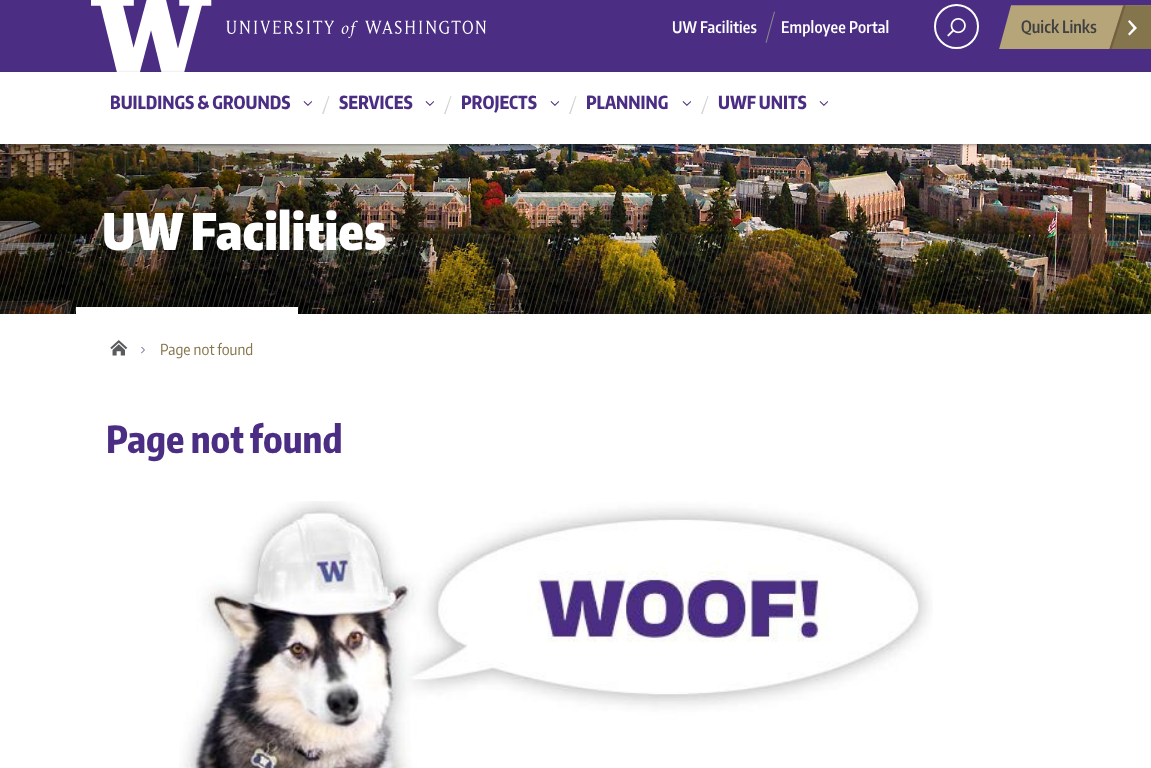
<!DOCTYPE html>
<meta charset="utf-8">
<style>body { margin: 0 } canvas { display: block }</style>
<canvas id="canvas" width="1151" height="768"></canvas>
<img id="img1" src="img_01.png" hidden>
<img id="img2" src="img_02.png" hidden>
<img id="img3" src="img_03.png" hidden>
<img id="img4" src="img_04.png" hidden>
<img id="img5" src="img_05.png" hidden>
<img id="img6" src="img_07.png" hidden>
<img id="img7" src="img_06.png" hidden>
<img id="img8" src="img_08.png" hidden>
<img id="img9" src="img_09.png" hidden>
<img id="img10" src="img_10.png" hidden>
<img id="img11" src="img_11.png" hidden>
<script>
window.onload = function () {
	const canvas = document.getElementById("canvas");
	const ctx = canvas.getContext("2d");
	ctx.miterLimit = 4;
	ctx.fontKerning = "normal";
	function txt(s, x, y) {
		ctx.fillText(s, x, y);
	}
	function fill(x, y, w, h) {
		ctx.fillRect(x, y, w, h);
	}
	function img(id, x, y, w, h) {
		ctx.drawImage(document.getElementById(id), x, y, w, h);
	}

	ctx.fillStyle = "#FFFFFF";
	fill(0, 0, 1151, 768);
	ctx.fillStyle = "#4B2E83";
	fill(0, 0, 1151, 72);
	img("img1", 91, 0, 121, 72);
	img("img2", 226, 20, 260, 18);
	img("img3", 765, 11, 10, 32);
	ctx.beginPath();
	ctx.arc(956.5, 26.5, 21.5, 0, Math.PI * 2);
	ctx.strokeStyle = "#FFFFFF";
	ctx.lineWidth = 2;
	ctx.stroke();
	img("img4", 947, 18, 19, 19);
	img("img5", 999, 5, 152, 44);
	ctx.fillStyle = "#FFFFFF";
	ctx.beginPath();
	ctx.moveTo(1137, 28);
	ctx.lineTo(1129.5, 20);
	ctx.lineTo(1128, 21.5);
	ctx.lineTo(1133.5, 28);
	ctx.lineTo(1128, 34);
	ctx.lineTo(1129.5, 35.5);
	ctx.closePath();
	ctx.fill();
	img("img6", 0, 144, 1151, 170);
	ctx.fillStyle = "rgba(34, 25, 25, 0.4)";
	ctx.filter = "blur(1.5px)";
	ctx.beginPath();
	ctx.rect(0, 73, 1151, 72);
	ctx.fill();
	ctx.filter = "none";
	ctx.fillStyle = "#FFFFFF";
	fill(0, 72, 1151, 72);
	img("img7", 303, 101, 9, 5);
	ctx.fillStyle = "#D1D3D4";
	ctx.beginPath();
	ctx.moveTo(328.5, 96);
	ctx.lineTo(322, 114);
	ctx.lineTo(323.5, 114);
	ctx.lineTo(329.5, 96);
	ctx.closePath();
	ctx.fill();
	img("img7", 425, 101, 9, 5);
	ctx.beginPath();
	ctx.moveTo(450.5, 96);
	ctx.lineTo(444, 114);
	ctx.lineTo(445.5, 114);
	ctx.lineTo(451.5, 96);
	ctx.closePath();
	ctx.fill();
	img("img7", 550, 101, 9, 5);
	ctx.beginPath();
	ctx.moveTo(575.5, 96);
	ctx.lineTo(569, 114);
	ctx.lineTo(570.5, 114);
	ctx.lineTo(576.5, 96);
	ctx.closePath();
	ctx.fill();
	img("img7", 682, 101, 9, 5);
	ctx.beginPath();
	ctx.moveTo(707.5, 96);
	ctx.lineTo(701, 114);
	ctx.lineTo(702.5, 114);
	ctx.lineTo(708.5, 96);
	ctx.closePath();
	ctx.fill();
	img("img7", 819, 101, 9, 5);
	img("img8", 0, 234, 1151, 80);
	ctx.fillStyle = "#FFFFFF";
	fill(76, 307, 222, 7);
	img("img9", 110, 340, 18, 16);
	img("img10", 141, 347, 4, 7);
	img("img11", 179, 501, 754, 267);
	ctx.letterSpacing = "0.2px";
	ctx.font = "600 16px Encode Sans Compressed";
	txt("UW Facilities", 672, 33);
	txt("Employee Portal", 781, 33);
	ctx.letterSpacing = "0px";
	ctx.font = "600 17px Encode Sans Compressed";
	ctx.fillStyle = "#404040";
	txt("Quick Links", 1021, 33);
	ctx.font = "800 18px Encode Sans Compressed";
	ctx.fillStyle = "#4B2E83";
	txt("BUILDINGS & GROUNDS", 110, 109);
	txt("SERVICES", 339, 109);
	txt("PROJECTS", 461, 109);
	txt("PLANNING", 586, 109);
	txt("UWF UNITS", 718, 109);
	ctx.font = "900 50px Encode Sans Compressed";
	ctx.fillStyle = "#FFFFFF";
	txt("UW Facilities", 102, 250);
	ctx.font = "15px Encode Sans Condensed";
	ctx.fillStyle = "#85754D";
	txt("Page not found", 160, 355);
	ctx.font = "800 37px Encode Sans Compressed";
	ctx.fillStyle = "#4B2E83";
	txt("Page not found", 106, 453);
};
</script>
